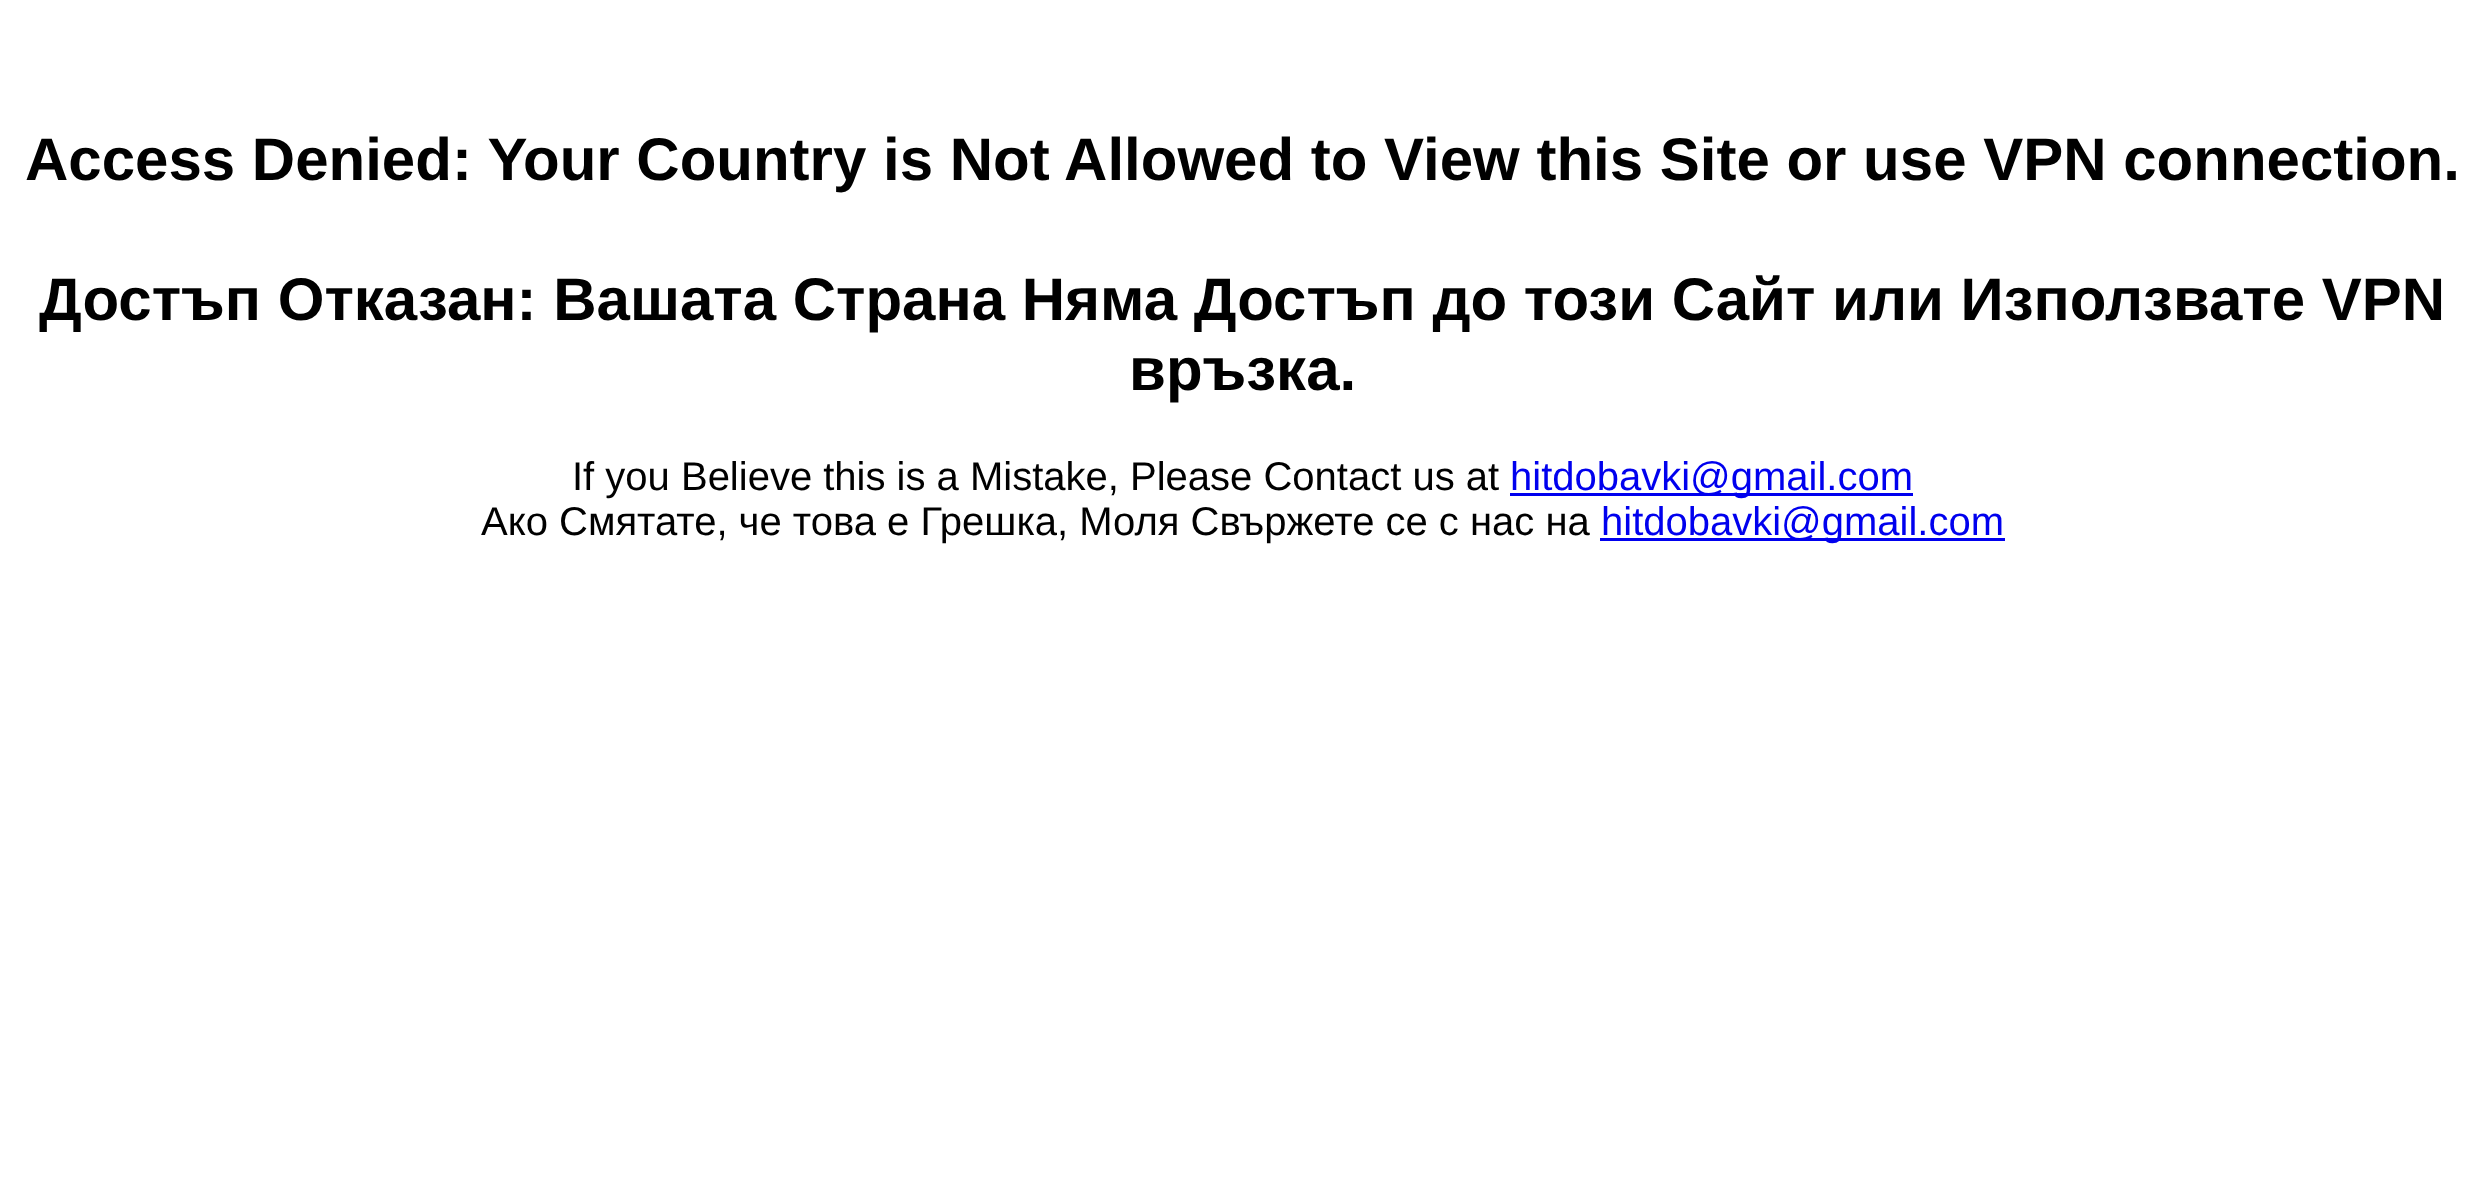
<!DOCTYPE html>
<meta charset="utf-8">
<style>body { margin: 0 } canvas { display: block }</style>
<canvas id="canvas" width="2483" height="1194"></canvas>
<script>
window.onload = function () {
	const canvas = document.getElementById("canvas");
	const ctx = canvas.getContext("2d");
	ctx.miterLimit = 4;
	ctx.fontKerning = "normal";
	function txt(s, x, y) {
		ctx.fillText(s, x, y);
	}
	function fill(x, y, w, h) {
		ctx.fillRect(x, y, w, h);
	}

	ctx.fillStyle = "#FFFFFF";
	fill(0, 0, 2483, 1194);
	ctx.fillStyle = "#0000EE";
	fill(1510, 493, 403, 3);
	fill(1600, 538, 405, 3);
	ctx.font = "bold 60px Liberation Sans";
	ctx.fillStyle = "#000000";
	txt("Access Denied: Your Country is Not Allowed to View this Site or use VPN connection.", 25, 180);
	txt("Достъп Отказан: Вашата Страна Няма Достъп до този Сайт или Използвате VPN", 39, 320);
	txt("връзка.", 1129, 390);
	ctx.font = "40px Liberation Sans";
	txt("If you Believe this is a Mistake, Please Contact us at", 572, 490);
	ctx.fillStyle = "#0000EE";
	txt("hitdobavki@gmail.com", 1510, 490);
	ctx.fillStyle = "#000000";
	txt("Ако Смятате, че това е Грешка, Моля Свържете се с нас на", 481, 535);
	ctx.fillStyle = "#0000EE";
	txt("hitdobavki@gmail.com", 1601, 535);
};
</script>
